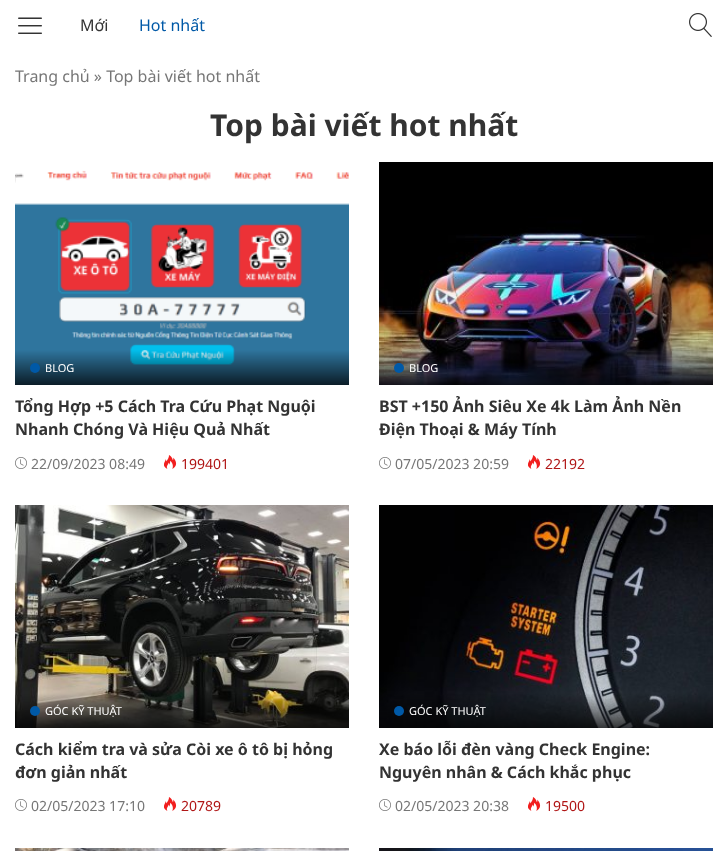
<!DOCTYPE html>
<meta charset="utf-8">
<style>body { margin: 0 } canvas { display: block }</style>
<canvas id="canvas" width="728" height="851"></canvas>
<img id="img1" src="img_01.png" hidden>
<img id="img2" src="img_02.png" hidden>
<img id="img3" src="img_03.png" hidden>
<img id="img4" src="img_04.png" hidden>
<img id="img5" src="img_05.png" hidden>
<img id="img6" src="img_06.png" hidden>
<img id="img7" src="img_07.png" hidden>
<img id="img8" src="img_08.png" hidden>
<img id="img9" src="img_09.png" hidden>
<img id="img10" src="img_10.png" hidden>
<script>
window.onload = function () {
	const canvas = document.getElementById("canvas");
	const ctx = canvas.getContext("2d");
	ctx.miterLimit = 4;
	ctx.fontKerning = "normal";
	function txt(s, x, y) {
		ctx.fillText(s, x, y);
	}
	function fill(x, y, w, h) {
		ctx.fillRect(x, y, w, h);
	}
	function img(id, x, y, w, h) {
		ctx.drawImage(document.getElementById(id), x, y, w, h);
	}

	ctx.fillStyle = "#FFFFFF";
	fill(0, 0, 728, 851);
	img("img1", 18, 17, 24, 17);
	img("img2", 689, 13, 23, 24);
	img("img3", 15, 170, 334, 215);
	ctx.fillStyle = "#0059A7";
	ctx.beginPath();
	ctx.arc(35, 368, 5, 0, Math.PI * 2);
	ctx.fill();
	img("img4", 15, 457, 12, 12);
	img("img5", 164, 455, 13, 14);
	img("img6", 379, 162, 334, 223);
	ctx.beginPath();
	ctx.arc(399, 368, 5, 0, Math.PI * 2);
	ctx.fill();
	img("img4", 379, 457, 12, 12);
	img("img5", 528, 455, 13, 14);
	img("img7", 15, 505, 334, 223);
	ctx.beginPath();
	ctx.arc(35, 711, 5, 0, Math.PI * 2);
	ctx.fill();
	img("img4", 15, 799, 12, 12);
	img("img5", 164, 797, 13, 14);
	img("img8", 379, 505, 334, 223);
	ctx.beginPath();
	ctx.arc(399, 711, 5, 0, Math.PI * 2);
	ctx.fill();
	img("img4", 379, 799, 12, 12);
	img("img5", 528, 797, 13, 14);
	img("img9", 15, 848, 334, 3);
	img("img10", 379, 848, 334, 3);
	ctx.font = "16px Noto Sans";
	ctx.fillStyle = "#333333";
	txt("Mới", 80, 31);
	ctx.fillStyle = "#0059A7";
	txt("Hot nhất", 139, 31);
	ctx.fillStyle = "#767676";
	txt("Trang chủ » Top bài viết hot nhất", 15, 82);
	ctx.font = "bold 30px Noto Sans";
	ctx.fillStyle = "#333333";
	txt("Top bài viết hot nhất", 210, 136);
	ctx.font = "11px Noto Sans";
	ctx.fillStyle = "#FFFFFF";
	txt("BLOG", 45, 372);
	ctx.font = "bold 16px Noto Sans";
	ctx.fillStyle = "#333333";
	txt("Tổng Hợp +5 Cách Tra Cứu Phạt Nguội", 15, 412);
	txt("Nhanh Chóng Và Hiệu Quả Nhất", 15, 435);
	ctx.font = "14px Noto Sans";
	ctx.fillStyle = "#767676";
	txt("22/09/2023 08:49", 31, 469);
	ctx.fillStyle = "#B01616";
	txt("199401", 181, 469);
	ctx.font = "11px Noto Sans";
	ctx.fillStyle = "#FFFFFF";
	txt("BLOG", 409, 372);
	ctx.font = "bold 16px Noto Sans";
	ctx.fillStyle = "#333333";
	txt("BST +150 Ảnh Siêu Xe 4k Làm Ảnh Nền", 379, 412);
	txt("Điện Thoại & Máy Tính", 379, 435);
	ctx.font = "14px Noto Sans";
	ctx.fillStyle = "#767676";
	txt("07/05/2023 20:59", 395, 469);
	ctx.fillStyle = "#B01616";
	txt("22192", 545, 469);
	ctx.font = "11px Noto Sans";
	ctx.fillStyle = "#FFFFFF";
	txt("GÓC KỸ THUẬT", 45, 715);
	ctx.font = "bold 16px Noto Sans";
	ctx.fillStyle = "#333333";
	txt("Cách kiểm tra và sửa Còi xe ô tô bị hỏng", 15, 755);
	txt("đơn giản nhất", 15, 778);
	ctx.font = "14px Noto Sans";
	ctx.fillStyle = "#767676";
	txt("02/05/2023 17:10", 31, 811);
	ctx.fillStyle = "#B01616";
	txt("20789", 181, 811);
	ctx.font = "11px Noto Sans";
	ctx.fillStyle = "#FFFFFF";
	txt("GÓC KỸ THUẬT", 409, 715);
	ctx.font = "bold 16px Noto Sans";
	ctx.fillStyle = "#333333";
	txt("Xe báo lỗi đèn vàng Check Engine:", 379, 755);
	txt("Nguyên nhân & Cách khắc phục", 379, 778);
	ctx.font = "14px Noto Sans";
	ctx.fillStyle = "#767676";
	txt("02/05/2023 20:38", 395, 811);
	ctx.fillStyle = "#B01616";
	txt("19500", 545, 811);
};
</script>
